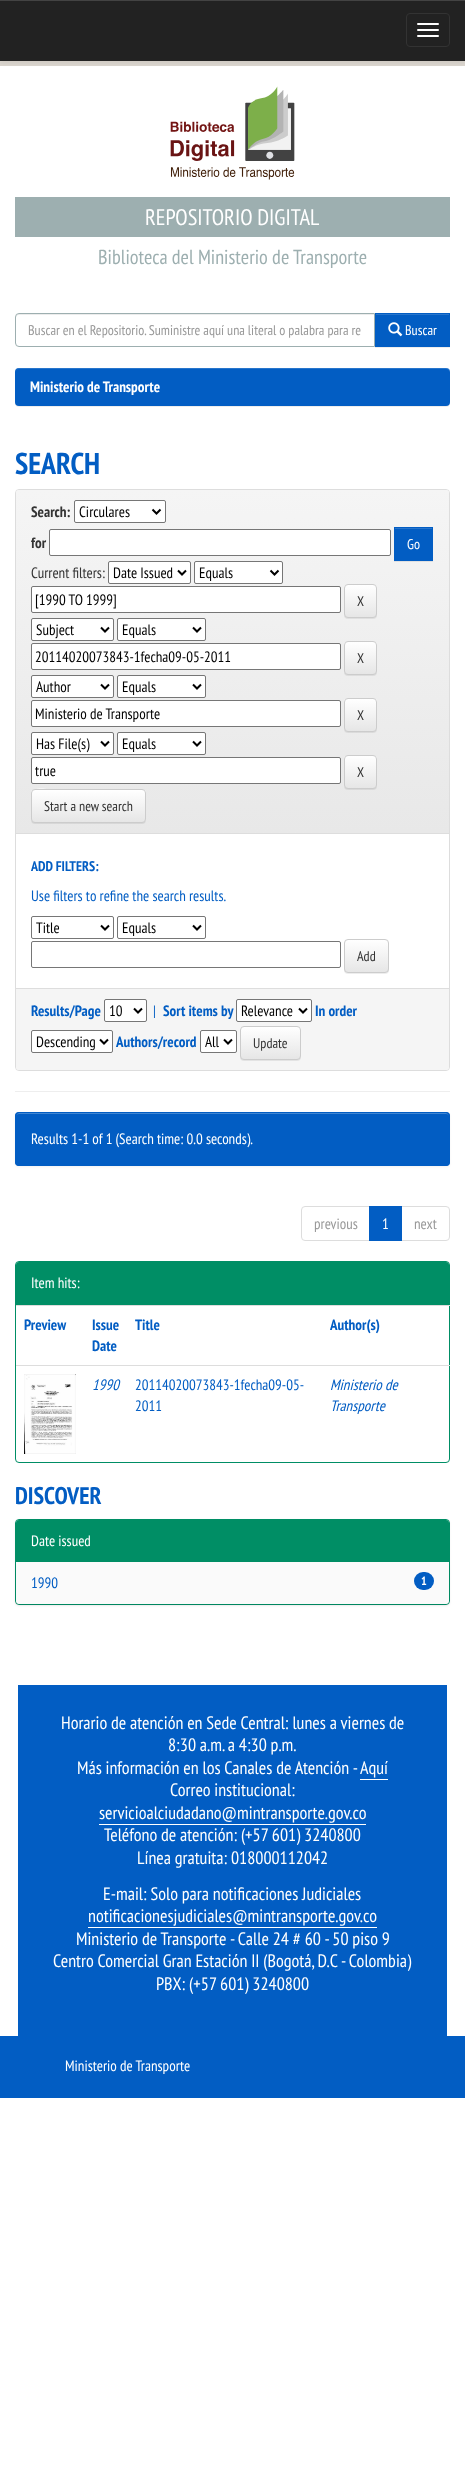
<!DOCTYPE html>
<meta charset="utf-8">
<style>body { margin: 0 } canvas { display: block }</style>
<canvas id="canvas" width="465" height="2489"></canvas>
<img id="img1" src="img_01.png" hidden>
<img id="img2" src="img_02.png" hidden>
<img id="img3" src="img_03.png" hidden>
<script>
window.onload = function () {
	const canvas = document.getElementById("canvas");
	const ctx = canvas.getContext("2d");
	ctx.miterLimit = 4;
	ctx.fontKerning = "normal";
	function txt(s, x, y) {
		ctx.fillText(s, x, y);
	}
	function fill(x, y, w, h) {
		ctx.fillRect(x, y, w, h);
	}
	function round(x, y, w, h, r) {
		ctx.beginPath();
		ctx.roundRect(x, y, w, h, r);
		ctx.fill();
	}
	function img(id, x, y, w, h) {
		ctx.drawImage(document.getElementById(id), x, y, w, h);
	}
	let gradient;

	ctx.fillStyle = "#FFFFFF";
	fill(0, 0, 465, 2489);
	ctx.fillStyle = "#DAD5CE";
	fill(0, 61, 465, 5);
	ctx.fillStyle = "rgba(0, 0, 0, 0.07)";
	ctx.filter = "blur(2.5px)";
	ctx.beginPath();
	ctx.rect(0, 1, 465, 61);
	ctx.fill();
	ctx.filter = "none";
	ctx.fillStyle = "#222222";
	fill(0, 1, 465, 60);
	ctx.fillStyle = "#434343";
	fill(0, 0, 465, 1);
	ctx.beginPath();
	ctx.roundRect(406.5, 13.5, 43, 33, 3.5);
	ctx.strokeStyle = "#333333";
	ctx.stroke();
	ctx.fillStyle = "#FFFFFF";
	round(417, 23, 22, 2, 1);
	round(417, 29, 22, 2, 1);
	round(417, 35, 22, 2, 1);
	img("img1", 170, 86, 125, 94);
	ctx.fillStyle = "#9DAFB0";
	fill(15, 197, 435, 40);
	ctx.fillStyle = "#ECECEC";
	ctx.beginPath();
	ctx.moveTo(19, 315);
	ctx.lineTo(374, 315);
	ctx.lineTo(374, 314);
	ctx.lineTo(19, 314);
	ctx.bezierCurveTo(17, 314, 16, 315, 16, 317);
	ctx.lineTo(16, 318);
	ctx.bezierCurveTo(16, 316, 17, 315, 19, 315);
	ctx.closePath();
	ctx.fill();
	ctx.beginPath();
	ctx.roundRect(15.5, 313.5, 359, 33, [3.5, 0, 0, 3.5]);
	ctx.strokeStyle = "#9DAFB0";
	ctx.stroke();
	ctx.fillStyle = "rgba(0, 0, 0, 0.07)";
	ctx.filter = "blur(0.5px)";
	ctx.beginPath();
	ctx.rect(375, 314, 75, 34);
	ctx.fill();
	ctx.filter = "none";
	ctx.fillStyle = "#025DC3";
	fill(375, 313, 75, 34);
	ctx.fillStyle = "#2875CC";
	fill(376, 314, 73, 1);
	img("img2", 388, 322, 15, 15);
	ctx.fillStyle = "rgba(0, 0, 0, 0.07)";
	ctx.filter = "blur(0.5px)";
	ctx.beginPath();
	ctx.roundRect(15, 369, 435, 38, 4);
	ctx.fill();
	ctx.filter = "none";
	ctx.fillStyle = "#025DC3";
	round(15, 368, 435, 38, 4);
	ctx.fillStyle = "rgba(255, 255, 255, 0.15)";
	ctx.beginPath();
	ctx.moveTo(19, 369);
	ctx.lineTo(446, 369);
	ctx.bezierCurveTo(448, 369, 450, 371, 450, 373);
	ctx.bezierCurveTo(450, 370, 449, 368, 446, 368);
	ctx.lineTo(19, 368);
	ctx.lineTo(17, 369);
	ctx.lineTo(16, 370);
	ctx.lineTo(15, 373);
	ctx.bezierCurveTo(15, 371, 17, 369, 19, 369);
	ctx.closePath();
	ctx.fill();
	ctx.beginPath();
	ctx.roundRect(15.5, 489.5, 434, 581, 3.5);
	ctx.strokeStyle = "#DDDDDD";
	ctx.stroke();
	gradient = ctx.createLinearGradient(232, 490, 233, 833);
	gradient.addColorStop(0, "#F5F5F5");
	gradient.addColorStop(1, "#E8E8E8");
	ctx.fillStyle = gradient;
	ctx.beginPath();
	ctx.roundRect(16, 490, 433, 343, [3, 3, 0, 0]);
	ctx.fill();
	ctx.fillStyle = "#DDDDDD";
	fill(16, 833, 433, 1);
	ctx.fillStyle = "#FFFFFF";
	ctx.beginPath();
	ctx.roundRect(74.5, 500.5, 91, 22, 1.5);
	ctx.fill();
	ctx.strokeStyle = "#767676";
	ctx.stroke();
	ctx.beginPath();
	ctx.moveTo(152.5, 509.5);
	ctx.lineTo(156.5, 513.5);
	ctx.lineTo(160.5, 509.5);
	ctx.strokeStyle = "#000000";
	ctx.lineWidth = 2;
	ctx.stroke();
	ctx.beginPath();
	ctx.roundRect(49.5, 529.5, 341, 26, 1.5);
	ctx.fill();
	ctx.strokeStyle = "#767676";
	ctx.lineWidth = 1;
	ctx.stroke();
	ctx.fillStyle = "rgba(0, 0, 0, 0.07)";
	ctx.filter = "blur(0.5px)";
	ctx.beginPath();
	ctx.rect(394, 528, 39, 34);
	ctx.fill();
	ctx.filter = "none";
	ctx.fillStyle = "#025DC3";
	fill(394, 527, 39, 34);
	ctx.fillStyle = "#2875CC";
	fill(395, 528, 37, 1);
	ctx.fillStyle = "#FFFFFF";
	ctx.beginPath();
	ctx.roundRect(108.5, 561.5, 82, 22, 1.5);
	ctx.fill();
	ctx.stroke();
	ctx.beginPath();
	ctx.moveTo(178, 570.5);
	ctx.lineTo(182, 574.5);
	ctx.lineTo(186, 570.5);
	ctx.strokeStyle = "#000000";
	ctx.lineWidth = 2;
	ctx.stroke();
	ctx.beginPath();
	ctx.roundRect(194.5, 561.5, 88, 22, 1.5);
	ctx.fill();
	ctx.strokeStyle = "#767676";
	ctx.lineWidth = 1;
	ctx.stroke();
	ctx.beginPath();
	ctx.moveTo(270.5, 570.5);
	ctx.lineTo(274.5, 574.5);
	ctx.lineTo(278.5, 570.5);
	ctx.strokeStyle = "#000000";
	ctx.lineWidth = 2;
	ctx.stroke();
	ctx.beginPath();
	ctx.roundRect(31.5, 586.5, 309, 26, 1.5);
	ctx.fill();
	ctx.strokeStyle = "#767676";
	ctx.lineWidth = 1;
	ctx.stroke();
	ctx.fillStyle = "rgba(0, 0, 0, 0.07)";
	ctx.filter = "blur(0.5px)";
	ctx.beginPath();
	ctx.roundRect(344, 585, 33, 34, 4);
	ctx.fill();
	ctx.filter = "none";
	ctx.save();
	ctx.beginPath();
	ctx.roundRect(344, 584, 33, 34, 4);
	ctx.clip();
	gradient = ctx.createLinearGradient(361, 585, 361, 617);
	gradient.addColorStop(0, "#FFFFFF");
	gradient.addColorStop(1, "#E6E6E6");
	ctx.fillStyle = gradient;
	fill(344, 585, 33, 32);
	ctx.restore();
	ctx.beginPath();
	ctx.roundRect(344.5, 584.5, 32, 33, 3.5);
	ctx.strokeStyle = "#CCCCCC";
	ctx.stroke();
	ctx.fillStyle = "#FFFFFF";
	ctx.beginPath();
	ctx.roundRect(31.5, 618.5, 82, 22, 1.5);
	ctx.fill();
	ctx.strokeStyle = "#767676";
	ctx.stroke();
	ctx.beginPath();
	ctx.moveTo(101, 627.5);
	ctx.lineTo(105, 631.5);
	ctx.lineTo(109, 627.5);
	ctx.strokeStyle = "#000000";
	ctx.lineWidth = 2;
	ctx.stroke();
	ctx.beginPath();
	ctx.roundRect(117.5, 618.5, 88, 22, 1.5);
	ctx.fill();
	ctx.strokeStyle = "#767676";
	ctx.lineWidth = 1;
	ctx.stroke();
	ctx.beginPath();
	ctx.moveTo(193, 627.5);
	ctx.lineTo(197, 631.5);
	ctx.lineTo(201, 627.5);
	ctx.strokeStyle = "#000000";
	ctx.lineWidth = 2;
	ctx.stroke();
	ctx.beginPath();
	ctx.roundRect(31.5, 643.5, 309, 26, 1.5);
	ctx.fill();
	ctx.strokeStyle = "#767676";
	ctx.lineWidth = 1;
	ctx.stroke();
	ctx.fillStyle = "rgba(0, 0, 0, 0.07)";
	ctx.filter = "blur(0.5px)";
	ctx.beginPath();
	ctx.roundRect(344, 642, 33, 34, 4);
	ctx.fill();
	ctx.filter = "none";
	ctx.save();
	ctx.beginPath();
	ctx.roundRect(344, 641, 33, 34, 4);
	ctx.clip();
	gradient = ctx.createLinearGradient(361, 642, 361, 674);
	gradient.addColorStop(0, "#FFFFFF");
	gradient.addColorStop(1, "#E6E6E6");
	ctx.fillStyle = gradient;
	fill(344, 642, 33, 32);
	ctx.restore();
	ctx.beginPath();
	ctx.roundRect(344.5, 641.5, 32, 33, 3.5);
	ctx.strokeStyle = "#CCCCCC";
	ctx.stroke();
	ctx.fillStyle = "#FFFFFF";
	ctx.beginPath();
	ctx.roundRect(31.5, 675.5, 82, 22, 1.5);
	ctx.fill();
	ctx.strokeStyle = "#767676";
	ctx.stroke();
	ctx.beginPath();
	ctx.moveTo(101, 684.5);
	ctx.lineTo(105, 688.5);
	ctx.lineTo(109, 684.5);
	ctx.strokeStyle = "#000000";
	ctx.lineWidth = 2;
	ctx.stroke();
	ctx.beginPath();
	ctx.roundRect(117.5, 675.5, 88, 22, 1.5);
	ctx.fill();
	ctx.strokeStyle = "#767676";
	ctx.lineWidth = 1;
	ctx.stroke();
	ctx.beginPath();
	ctx.moveTo(193, 684.5);
	ctx.lineTo(197, 688.5);
	ctx.lineTo(201, 684.5);
	ctx.strokeStyle = "#000000";
	ctx.lineWidth = 2;
	ctx.stroke();
	ctx.beginPath();
	ctx.roundRect(31.5, 700.5, 309, 26, 1.5);
	ctx.fill();
	ctx.strokeStyle = "#767676";
	ctx.lineWidth = 1;
	ctx.stroke();
	ctx.fillStyle = "rgba(0, 0, 0, 0.07)";
	ctx.filter = "blur(0.5px)";
	ctx.beginPath();
	ctx.roundRect(344, 699, 33, 34, 4);
	ctx.fill();
	ctx.filter = "none";
	ctx.save();
	ctx.beginPath();
	ctx.roundRect(344, 698, 33, 34, 4);
	ctx.clip();
	gradient = ctx.createLinearGradient(361, 699, 361, 731);
	gradient.addColorStop(0, "#FFFFFF");
	gradient.addColorStop(1, "#E6E6E6");
	ctx.fillStyle = gradient;
	fill(344, 699, 33, 32);
	ctx.restore();
	ctx.beginPath();
	ctx.roundRect(344.5, 698.5, 32, 33, 3.5);
	ctx.strokeStyle = "#CCCCCC";
	ctx.stroke();
	ctx.fillStyle = "#FFFFFF";
	ctx.beginPath();
	ctx.roundRect(31.5, 732.5, 82, 22, 1.5);
	ctx.fill();
	ctx.strokeStyle = "#767676";
	ctx.stroke();
	ctx.beginPath();
	ctx.moveTo(101, 741.5);
	ctx.lineTo(105, 745.5);
	ctx.lineTo(109, 741.5);
	ctx.strokeStyle = "#000000";
	ctx.lineWidth = 2;
	ctx.stroke();
	ctx.beginPath();
	ctx.roundRect(117.5, 732.5, 88, 22, 1.5);
	ctx.fill();
	ctx.strokeStyle = "#767676";
	ctx.lineWidth = 1;
	ctx.stroke();
	ctx.beginPath();
	ctx.moveTo(193, 741.5);
	ctx.lineTo(197, 745.5);
	ctx.lineTo(201, 741.5);
	ctx.strokeStyle = "#000000";
	ctx.lineWidth = 2;
	ctx.stroke();
	ctx.beginPath();
	ctx.roundRect(31.5, 757.5, 309, 26, 1.5);
	ctx.fill();
	ctx.strokeStyle = "#767676";
	ctx.lineWidth = 1;
	ctx.stroke();
	ctx.fillStyle = "rgba(0, 0, 0, 0.07)";
	ctx.filter = "blur(0.5px)";
	ctx.beginPath();
	ctx.roundRect(344, 756, 33, 34, 4);
	ctx.fill();
	ctx.filter = "none";
	ctx.save();
	ctx.beginPath();
	ctx.roundRect(344, 755, 33, 34, 4);
	ctx.clip();
	gradient = ctx.createLinearGradient(361, 756, 361, 788);
	gradient.addColorStop(0, "#FFFFFF");
	gradient.addColorStop(1, "#E6E6E6");
	ctx.fillStyle = gradient;
	fill(344, 756, 33, 32);
	ctx.restore();
	ctx.beginPath();
	ctx.roundRect(344.5, 755.5, 32, 33, 3.5);
	ctx.strokeStyle = "#CCCCCC";
	ctx.stroke();
	ctx.filter = "blur(0.5px)";
	ctx.beginPath();
	ctx.roundRect(31, 790, 115, 34, 4);
	ctx.fill();
	ctx.filter = "none";
	ctx.save();
	ctx.beginPath();
	ctx.roundRect(31, 789, 115, 34, 4);
	ctx.clip();
	gradient = ctx.createLinearGradient(89, 790, 89, 822);
	gradient.addColorStop(0, "#FFFFFF");
	gradient.addColorStop(1, "#E6E6E6");
	ctx.fillStyle = gradient;
	fill(31, 790, 115, 32);
	ctx.restore();
	ctx.fillStyle = "#FFFFFF";
	ctx.beginPath();
	ctx.moveTo(35, 791);
	ctx.lineTo(142, 791);
	ctx.bezierCurveTo(144, 791, 145, 792, 145, 794);
	ctx.bezierCurveTo(145, 792, 144, 790, 142, 790);
	ctx.lineTo(53, 790);
	ctx.bezierCurveTo(51, 790, 32, 785, 32, 794);
	ctx.bezierCurveTo(32, 792, 33, 791, 35, 791);
	ctx.closePath();
	ctx.fill();
	ctx.beginPath();
	ctx.roundRect(31.5, 789.5, 114, 33, 3.5);
	ctx.stroke();
	ctx.beginPath();
	ctx.roundRect(31.5, 916.5, 82, 22, 1.5);
	ctx.strokeStyle = "#767676";
	ctx.stroke();
	ctx.beginPath();
	ctx.moveTo(101, 925.5);
	ctx.lineTo(105, 929.5);
	ctx.lineTo(109, 925.5);
	ctx.strokeStyle = "#000000";
	ctx.lineWidth = 2;
	ctx.stroke();
	ctx.beginPath();
	ctx.roundRect(117.5, 916.5, 88, 22, 1.5);
	ctx.strokeStyle = "#767676";
	ctx.lineWidth = 1;
	ctx.stroke();
	ctx.beginPath();
	ctx.moveTo(193, 925.5);
	ctx.lineTo(197, 929.5);
	ctx.lineTo(201, 925.5);
	ctx.strokeStyle = "#000000";
	ctx.lineWidth = 2;
	ctx.stroke();
	ctx.beginPath();
	ctx.roundRect(31.5, 941.5, 309, 26, 1.5);
	ctx.strokeStyle = "#767676";
	ctx.lineWidth = 1;
	ctx.stroke();
	ctx.fillStyle = "rgba(0, 0, 0, 0.07)";
	ctx.filter = "blur(0.5px)";
	ctx.beginPath();
	ctx.roundRect(344, 940, 45, 34, 4);
	ctx.fill();
	ctx.filter = "none";
	ctx.save();
	ctx.beginPath();
	ctx.roundRect(344, 939, 45, 34, 4);
	ctx.clip();
	gradient = ctx.createLinearGradient(367, 940, 367, 972);
	gradient.addColorStop(0, "#FFFFFF");
	gradient.addColorStop(1, "#E6E6E6");
	ctx.fillStyle = gradient;
	fill(344, 940, 45, 32);
	ctx.restore();
	ctx.beginPath();
	ctx.roundRect(344.5, 939.5, 44, 33, 3.5);
	ctx.strokeStyle = "#CCCCCC";
	ctx.stroke();
	ctx.fillStyle = "#F5F5F5";
	ctx.beginPath();
	ctx.roundRect(16, 988, 433, 82, [0, 0, 3, 3]);
	ctx.fill();
	ctx.fillStyle = "#DDDDDD";
	fill(16, 988, 433, 1);
	ctx.fillStyle = "#FFFFFF";
	ctx.beginPath();
	ctx.roundRect(104.5, 999.5, 42, 22, 1.5);
	ctx.fill();
	ctx.strokeStyle = "#767676";
	ctx.stroke();
	ctx.beginPath();
	ctx.moveTo(134, 1008.5);
	ctx.lineTo(138, 1012.5);
	ctx.lineTo(142, 1008.5);
	ctx.strokeStyle = "#000000";
	ctx.lineWidth = 2;
	ctx.stroke();
	ctx.beginPath();
	ctx.roundRect(236.5, 999.5, 75, 22, 1.5);
	ctx.fill();
	ctx.strokeStyle = "#767676";
	ctx.lineWidth = 1;
	ctx.stroke();
	ctx.beginPath();
	ctx.moveTo(299, 1008.5);
	ctx.lineTo(303, 1012.5);
	ctx.lineTo(307, 1008.5);
	ctx.strokeStyle = "#000000";
	ctx.lineWidth = 2;
	ctx.stroke();
	ctx.beginPath();
	ctx.roundRect(31.5, 1030.5, 81, 22, 1.5);
	ctx.fill();
	ctx.strokeStyle = "#767676";
	ctx.lineWidth = 1;
	ctx.stroke();
	ctx.beginPath();
	ctx.moveTo(100, 1039.5);
	ctx.lineTo(104, 1043.5);
	ctx.lineTo(108, 1039.5);
	ctx.strokeStyle = "#000000";
	ctx.lineWidth = 2;
	ctx.stroke();
	ctx.beginPath();
	ctx.roundRect(200.5, 1030.5, 36, 22, 1.5);
	ctx.fill();
	ctx.strokeStyle = "#767676";
	ctx.lineWidth = 1;
	ctx.stroke();
	ctx.beginPath();
	ctx.moveTo(224, 1039.5);
	ctx.lineTo(228, 1043.5);
	ctx.lineTo(232, 1039.5);
	ctx.strokeStyle = "#000000";
	ctx.lineWidth = 2;
	ctx.stroke();
	ctx.fillStyle = "rgba(0, 0, 0, 0.07)";
	ctx.filter = "blur(0.5px)";
	ctx.beginPath();
	ctx.roundRect(240, 1027, 61, 34, 4);
	ctx.fill();
	ctx.filter = "none";
	ctx.save();
	ctx.beginPath();
	ctx.roundRect(240, 1026, 61, 34, 4);
	ctx.clip();
	gradient = ctx.createLinearGradient(271, 1027, 271, 1059);
	gradient.addColorStop(0, "#FFFFFF");
	gradient.addColorStop(1, "#E6E6E6");
	ctx.fillStyle = gradient;
	fill(240, 1027, 61, 32);
	ctx.restore();
	ctx.beginPath();
	ctx.roundRect(240.5, 1026.5, 60, 33, 3.5);
	ctx.strokeStyle = "#CCCCCC";
	ctx.lineWidth = 1;
	ctx.stroke();
	ctx.fillStyle = "#EEEEEE";
	fill(15, 1091, 435, 1);
	ctx.fillStyle = "rgba(0, 0, 0, 0.05)";
	ctx.filter = "blur(1px)";
	ctx.beginPath();
	ctx.roundRect(15, 1113, 435, 54, 4);
	ctx.fill();
	ctx.filter = "none";
	ctx.fillStyle = "#025DC3";
	round(15, 1112, 435, 54, 4);
	ctx.fillStyle = "#4186D2";
	ctx.beginPath();
	ctx.moveTo(19, 1114);
	ctx.lineTo(446, 1114);
	ctx.bezierCurveTo(448, 1114, 449, 1115, 449, 1117);
	ctx.bezierCurveTo(449, 1115, 448, 1113, 446, 1113);
	ctx.lineTo(19, 1113);
	ctx.bezierCurveTo(17, 1113, 16, 1115, 16, 1117);
	ctx.bezierCurveTo(16, 1115, 17, 1114, 19, 1114);
	ctx.closePath();
	ctx.fill();
	ctx.beginPath();
	ctx.roundRect(15.5, 1112.5, 434, 53, 3.5);
	ctx.strokeStyle = "#025DC3";
	ctx.stroke();
	ctx.beginPath();
	ctx.roundRect(301.5, 1206.5, 68, 34, [3.5, 0, 0, 3.5]);
	ctx.strokeStyle = "#DDDDDD";
	ctx.stroke();
	ctx.beginPath();
	ctx.roundRect(401.5, 1206.5, 48, 34, [0, 3.5, 3.5, 0]);
	ctx.stroke();
	ctx.fillStyle = "#025DC3";
	fill(369, 1206, 33, 35);
	ctx.beginPath();
	ctx.roundRect(15.5, 1261.5, 434, 201, 3.5);
	ctx.strokeStyle = "#008E65";
	ctx.stroke();
	ctx.fillStyle = "#008E65";
	ctx.beginPath();
	ctx.roundRect(16, 1262, 433, 43, [3, 3, 0, 0]);
	ctx.fill();
	ctx.fillStyle = "#DDDDDD";
	fill(16, 1305, 434, 1);
	img("img3", 24, 1374, 52, 80);
	fill(16, 1365, 434, 1);
	ctx.fillStyle = "rgba(0, 0, 0, 0.05)";
	ctx.filter = "blur(1px)";
	ctx.beginPath();
	ctx.roundRect(15, 1520, 435, 86, 4);
	ctx.fill();
	ctx.filter = "none";
	ctx.beginPath();
	ctx.roundRect(15.5, 1519.5, 434, 85, 3.5);
	ctx.stroke();
	ctx.fillStyle = "#008E65";
	ctx.beginPath();
	ctx.roundRect(16, 1520, 433, 42, [3, 3, 0, 0]);
	ctx.fill();
	ctx.fillStyle = "rgba(0, 0, 0, 0.07)";
	ctx.filter = "blur(1px)";
	ctx.beginPath();
	ctx.roundRect(16, 1563, 433, 42, 4);
	ctx.fill();
	ctx.filter = "none";
	ctx.fillStyle = "#FAFAFA";
	ctx.beginPath();
	ctx.roundRect(16, 1562, 433, 42, [0, 0, 4, 4]);
	ctx.fill();
	ctx.fillStyle = "#025DC3";
	round(414, 1572, 20, 18, 9);
	fill(18, 1685, 429, 351);
	ctx.fillStyle = "#FFFFFF";
	fill(360, 1779, 28, 1);
	fill(99, 1824, 267, 1);
	fill(88, 1927, 289, 1);
	ctx.fillStyle = "#025DC3";
	fill(0, 2036, 465, 62);
	ctx.font = "22.5px PT Sans Narrow";
	ctx.fillStyle = "#FFFFFF";
	txt("REPOSITORIO DIGITAL", 145, 225);
	ctx.font = "20.25px PT Sans Narrow";
	ctx.fillStyle = "#9DAFB0";
	txt("Biblioteca del Ministerio de Transporte", 98, 264);
	ctx.font = "14px PT Sans Narrow";
	ctx.fillStyle = "#999999";
	txt("Buscar en el Repositorio. Suministre aquí una literal o palabra para re", 28, 335);
	ctx.fillStyle = "#FFFFFF";
	txt("Buscar", 405, 335);
	ctx.font = "bold 15px PT Sans Narrow";
	txt("Ministerio de Transporte", 30, 392);
	ctx.font = "bold 30px PT Sans Narrow";
	ctx.fillStyle = "#025DC3";
	txt("SEARCH", 15, 474);
	ctx.font = "bold 15px PT Sans Narrow";
	ctx.fillStyle = "#333333";
	txt("Search:", 31, 517);
	ctx.font = "15px PT Sans Narrow";
	ctx.fillStyle = "#000000";
	txt("Circulares", 79, 517);
	ctx.font = "bold 15px PT Sans Narrow";
	ctx.fillStyle = "#333333";
	txt("for", 31, 548);
	ctx.font = "14px PT Sans Narrow";
	ctx.fillStyle = "#FFFFFF";
	txt("Go", 407, 549);
	ctx.font = "15px PT Sans Narrow";
	ctx.fillStyle = "#333333";
	txt("Current filters:", 31, 578);
	ctx.fillStyle = "#000000";
	txt("Date Issued", 113, 578);
	txt("Equals", 199, 578);
	txt("[1990 TO 1999]", 35, 605);
	ctx.font = "14px PT Sans Narrow";
	ctx.fillStyle = "#333333";
	txt("X", 357, 606);
	ctx.font = "15px PT Sans Narrow";
	ctx.fillStyle = "#000000";
	txt("Subject", 36, 635);
	txt("Equals", 122, 635);
	txt("20114020073843-1fecha09-05-2011", 35, 662);
	ctx.font = "14px PT Sans Narrow";
	ctx.fillStyle = "#333333";
	txt("X", 357, 663);
	ctx.font = "15px PT Sans Narrow";
	ctx.fillStyle = "#000000";
	txt("Author", 36, 692);
	txt("Equals", 122, 692);
	txt("Ministerio de Transporte", 35, 719);
	ctx.font = "14px PT Sans Narrow";
	ctx.fillStyle = "#333333";
	txt("X", 357, 720);
	ctx.font = "15px PT Sans Narrow";
	ctx.fillStyle = "#000000";
	txt("Has File(s)", 36, 749);
	txt("Equals", 122, 749);
	txt("true", 35, 776);
	ctx.font = "14px PT Sans Narrow";
	ctx.fillStyle = "#333333";
	txt("X", 357, 777);
	txt("Start a new search", 44, 811);
	ctx.font = "bold 14px PT Sans Narrow";
	ctx.fillStyle = "#025DC3";
	txt("ADD FILTERS:", 31, 871);
	ctx.font = "15px PT Sans Narrow";
	txt("Use filters to refine the search results.", 31, 901);
	ctx.fillStyle = "#000000";
	txt("Title", 36, 933);
	txt("Equals", 122, 933);
	ctx.font = "14px PT Sans Narrow";
	ctx.fillStyle = "#333333";
	txt("Add", 357, 961);
	ctx.font = "bold 15px PT Sans Narrow";
	ctx.fillStyle = "#025DC3";
	txt("Results/Page", 31, 1016);
	ctx.font = "15px PT Sans Narrow";
	ctx.fillStyle = "#000000";
	txt("10", 109, 1016);
	ctx.fillStyle = "#025DC3";
	txt("|", 153, 1016);
	ctx.font = "bold 15px PT Sans Narrow";
	txt("Sort items by", 163, 1016);
	ctx.font = "15px PT Sans Narrow";
	ctx.fillStyle = "#000000";
	txt("Relevance", 241, 1016);
	ctx.font = "bold 15px PT Sans Narrow";
	ctx.fillStyle = "#025DC3";
	txt("In order", 315, 1016);
	ctx.font = "15px PT Sans Narrow";
	ctx.fillStyle = "#000000";
	txt("Descending", 36, 1047);
	ctx.font = "bold 15px PT Sans Narrow";
	ctx.fillStyle = "#025DC3";
	txt("Authors/record", 116, 1047);
	ctx.font = "15px PT Sans Narrow";
	ctx.fillStyle = "#000000";
	txt("All", 205, 1047);
	ctx.font = "14px PT Sans Narrow";
	ctx.fillStyle = "#333333";
	txt("Update", 253, 1048);
	ctx.font = "15px PT Sans Narrow";
	ctx.fillStyle = "#FFFFFF";
	txt("Results 1-1 of 1 (Search time: 0.0 seconds).", 31, 1144);
	ctx.fillStyle = "#999999";
	txt("previous", 314, 1229);
	ctx.fillStyle = "#FFFFFF";
	txt("1", 382, 1229);
	ctx.fillStyle = "#999999";
	txt("next", 414, 1229);
	ctx.fillStyle = "#FFFFFF";
	txt("Item hits:", 31, 1288);
	ctx.font = "bold 15px PT Sans Narrow";
	ctx.fillStyle = "#025DC3";
	txt("Preview", 24, 1330);
	txt("Issue", 92, 1330);
	txt("Date", 92, 1351);
	txt("Title", 135, 1330);
	txt("Author(s)", 330, 1330);
	ctx.font = "italic 15px PT Sans Narrow";
	txt("1990", 92, 1390);
	ctx.font = "15px PT Sans Narrow";
	txt("20114020073843-1fecha09-05-", 135, 1390);
	txt("2011", 135, 1411);
	ctx.font = "italic 15px PT Sans Narrow";
	txt("Ministerio de", 330, 1390);
	txt("Transporte", 330, 1411);
	ctx.font = "bold 24px PT Sans Narrow";
	txt("DISCOVER", 15, 1504);
	ctx.font = "15px PT Sans Narrow";
	ctx.fillStyle = "#FFFFFF";
	txt("Date issued", 31, 1546);
	ctx.fillStyle = "#025DC3";
	txt("1990", 31, 1588);
	ctx.font = "bold 12px PT Sans Narrow";
	ctx.fillStyle = "#FFFFFF";
	txt("1", 421, 1585);
	ctx.font = "18px PT Sans Narrow";
	txt("Horario de atención en Sede Central: lunes a viernes de", 61, 1729);
	txt("8:30 a.m. a 4:30 p.m.", 168, 1751);
	txt("Más información en los Canales de Atención - Aquí", 77, 1774);
	txt("Correo institucional:", 170, 1796);
	txt("servicioalciudadano@mintransporte.gov.co", 99, 1819);
	txt("Teléfono de atención: (+57 601) 3240800", 104, 1841);
	txt("Línea gratuita: 018000112042", 137, 1864);
	txt("E-mail: Solo para notificaciones Judiciales", 103, 1900);
	txt("notificacionesjudiciales@mintransporte.gov.co", 88, 1922);
	txt("Ministerio de Transporte - Calle 24 # 60 - 50 piso 9", 76, 1945);
	txt("Centro Comercial Gran Estación II (Bogotá, D.C - Colombia)", 53, 1967);
	txt("PBX: (+57 601) 3240800", 156, 1990);
	ctx.font = "15px PT Sans Narrow";
	txt("Ministerio de Transporte", 65, 2071);
};
</script>
